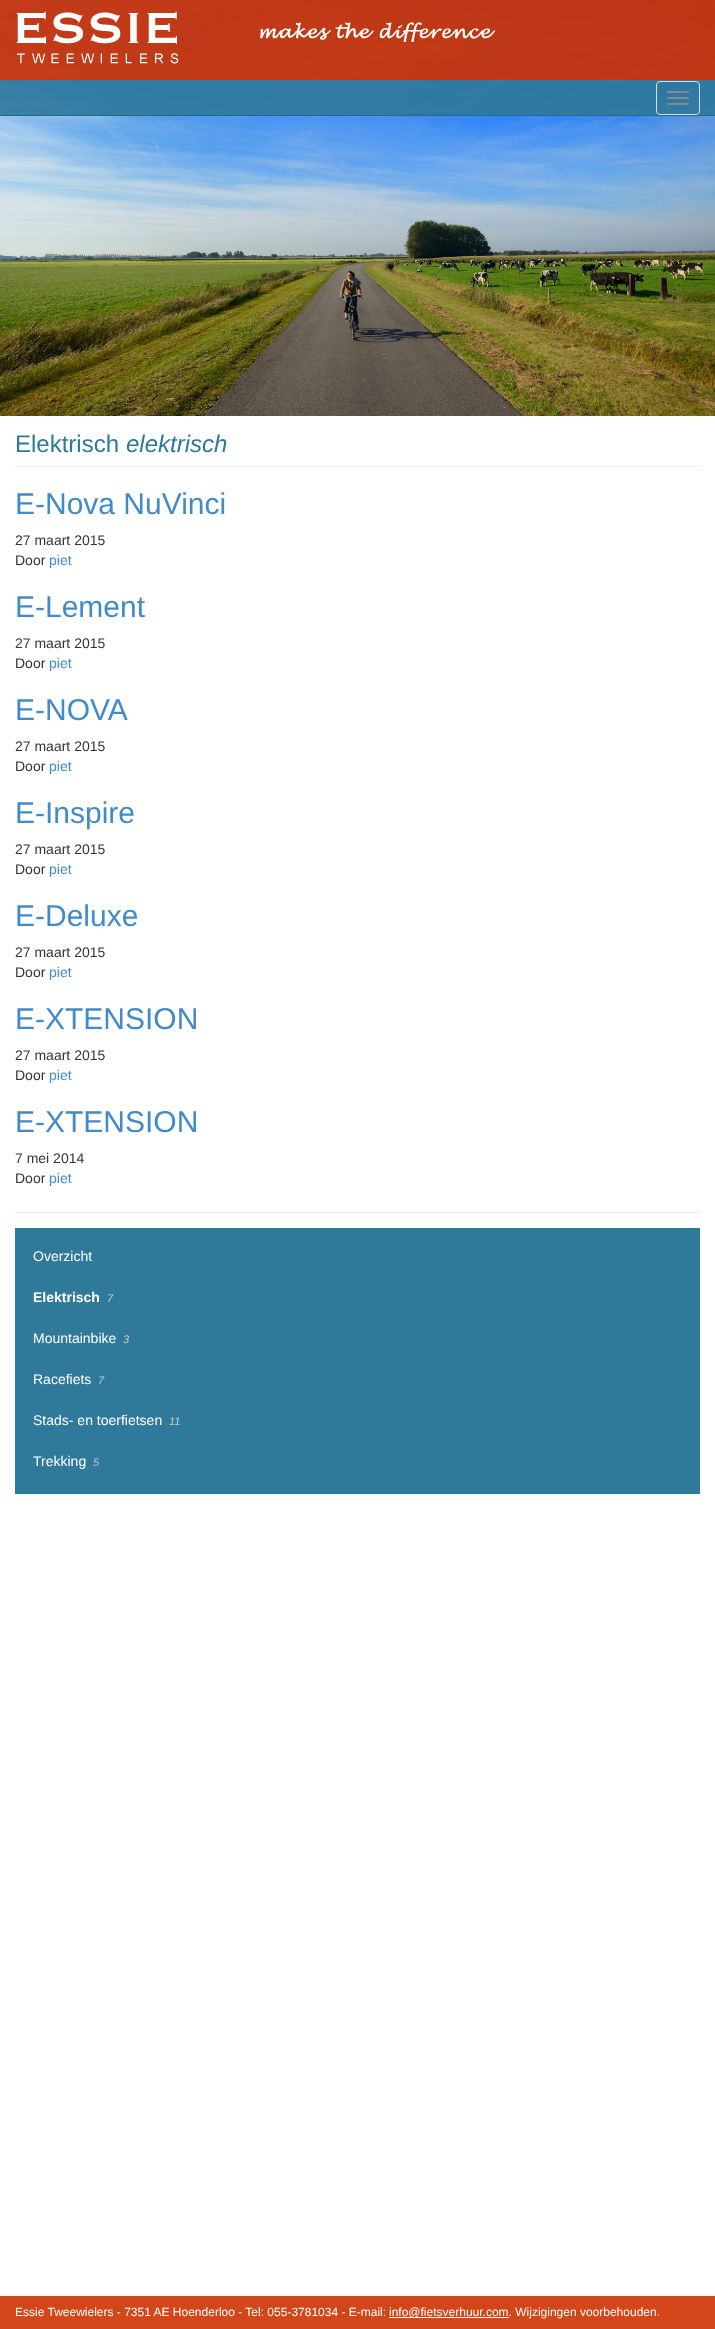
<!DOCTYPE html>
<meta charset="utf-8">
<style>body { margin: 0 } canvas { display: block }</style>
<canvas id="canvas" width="715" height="2329"></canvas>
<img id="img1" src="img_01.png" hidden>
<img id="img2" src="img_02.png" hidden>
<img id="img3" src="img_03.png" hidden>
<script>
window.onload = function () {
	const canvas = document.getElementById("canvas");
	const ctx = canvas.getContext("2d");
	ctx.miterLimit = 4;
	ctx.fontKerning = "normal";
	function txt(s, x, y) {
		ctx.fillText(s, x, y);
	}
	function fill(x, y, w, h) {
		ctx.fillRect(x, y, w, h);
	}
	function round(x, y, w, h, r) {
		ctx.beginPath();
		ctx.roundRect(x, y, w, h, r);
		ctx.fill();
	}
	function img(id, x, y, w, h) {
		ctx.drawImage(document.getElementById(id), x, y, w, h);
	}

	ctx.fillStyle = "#FFFFFF";
	fill(0, 0, 715, 2329);
	img("img1", 0, 0, 715, 416);
	ctx.fillStyle = "rgba(206, 49, 0, 0.9)";
	fill(0, 0, 715, 80);
	img("img2", 16, 11, 163, 53);
	img("img3", 260, 22, 235, 20);
	ctx.fillStyle = "rgba(47, 121, 155, 0.9)";
	fill(0, 80, 715, 36);
	ctx.fillStyle = "rgba(39, 101, 130, 0.9)";
	fill(0, 115, 715, 1);
	ctx.beginPath();
	ctx.roundRect(656.5, 81.5, 43, 33, 3.5);
	ctx.strokeStyle = "#DDDDDD";
	ctx.stroke();
	ctx.fillStyle = "#888888";
	round(667, 91, 22, 2, 1);
	round(667, 97, 22, 2, 1);
	round(667, 103, 22, 2, 1);
	ctx.fillStyle = "#EEEEEE";
	fill(15, 466, 685, 1);
	fill(15, 1212, 685, 1);
	ctx.fillStyle = "#2F799B";
	fill(15, 1228, 685, 266);
	ctx.fillStyle = "#D3461A";
	fill(0, 2296, 715, 33);
	ctx.fillStyle = "#FFFFFF";
	fill(389, 2317, 120, 1);
	ctx.font = "24px Liberation Sans";
	ctx.fillStyle = "#2F799B";
	txt("Elektrisch", 15, 452);
	ctx.font = "italic 24px Liberation Sans";
	txt("elektrisch", 126, 452);
	ctx.font = "30px Liberation Sans";
	ctx.fillStyle = "#428BCA";
	txt("E-Nova NuVinci", 15, 514);
	ctx.font = "14px Liberation Sans";
	ctx.fillStyle = "#333333";
	txt("27 maart 2015", 15, 545);
	txt("Door", 15, 565);
	ctx.fillStyle = "#428BCA";
	txt("piet", 49, 565);
	ctx.font = "30px Liberation Sans";
	txt("E-Lement", 15, 617);
	ctx.font = "14px Liberation Sans";
	ctx.fillStyle = "#333333";
	txt("27 maart 2015", 15, 648);
	txt("Door", 15, 668);
	ctx.fillStyle = "#428BCA";
	txt("piet", 49, 668);
	ctx.font = "30px Liberation Sans";
	txt("E-NOVA", 15, 720);
	ctx.font = "14px Liberation Sans";
	ctx.fillStyle = "#333333";
	txt("27 maart 2015", 15, 751);
	txt("Door", 15, 771);
	ctx.fillStyle = "#428BCA";
	txt("piet", 49, 771);
	ctx.font = "30px Liberation Sans";
	txt("E-Inspire", 15, 823);
	ctx.font = "14px Liberation Sans";
	ctx.fillStyle = "#333333";
	txt("27 maart 2015", 15, 854);
	txt("Door", 15, 874);
	ctx.fillStyle = "#428BCA";
	txt("piet", 49, 874);
	ctx.font = "30px Liberation Sans";
	txt("E-Deluxe", 15, 926);
	ctx.font = "14px Liberation Sans";
	ctx.fillStyle = "#333333";
	txt("27 maart 2015", 15, 957);
	txt("Door", 15, 977);
	ctx.fillStyle = "#428BCA";
	txt("piet", 49, 977);
	ctx.font = "30px Liberation Sans";
	txt("E-XTENSION", 15, 1029);
	ctx.font = "14px Liberation Sans";
	ctx.fillStyle = "#333333";
	txt("27 maart 2015", 15, 1060);
	txt("Door", 15, 1080);
	ctx.fillStyle = "#428BCA";
	txt("piet", 49, 1080);
	ctx.font = "30px Liberation Sans";
	txt("E-XTENSION", 15, 1132);
	ctx.font = "14px Liberation Sans";
	ctx.fillStyle = "#333333";
	txt("7 mei 2014", 15, 1163);
	txt("Door", 15, 1183);
	ctx.fillStyle = "#428BCA";
	txt("piet", 49, 1183);
	ctx.fillStyle = "#FFFFFF";
	txt("Overzicht", 33, 1261);
	ctx.font = "bold 14px Liberation Sans";
	txt("Elektrisch", 33, 1302);
	ctx.font = "italic 11px Liberation Sans";
	ctx.fillStyle = "#CCCCCC";
	txt("7", 107, 1302);
	ctx.font = "14px Liberation Sans";
	ctx.fillStyle = "#FFFFFF";
	txt("Mountainbike", 33, 1343);
	ctx.font = "italic 11px Liberation Sans";
	ctx.fillStyle = "#CCCCCC";
	txt("3", 123, 1343);
	ctx.font = "14px Liberation Sans";
	ctx.fillStyle = "#FFFFFF";
	txt("Racefiets", 33, 1384);
	ctx.font = "italic 11px Liberation Sans";
	ctx.fillStyle = "#CCCCCC";
	txt("7", 98, 1384);
	ctx.font = "14px Liberation Sans";
	ctx.fillStyle = "#FFFFFF";
	txt("Stads- en toerfietsen", 33, 1425);
	ctx.font = "italic 11px Liberation Sans";
	ctx.fillStyle = "#CCCCCC";
	txt("11", 169, 1425);
	ctx.font = "14px Liberation Sans";
	ctx.fillStyle = "#FFFFFF";
	txt("Trekking", 33, 1466);
	ctx.font = "italic 11px Liberation Sans";
	ctx.fillStyle = "#CCCCCC";
	txt("5", 93, 1466);
	ctx.font = "12px Liberation Sans";
	ctx.fillStyle = "#FFFFFF";
	txt("Essie Tweewielers - 7351 AE Hoenderloo - Tel: 055-3781034 - E-mail:", 15, 2316);
	txt("info@fietsverhuur.com. Wijzigingen voorbehouden.", 389, 2316);
};
</script>
